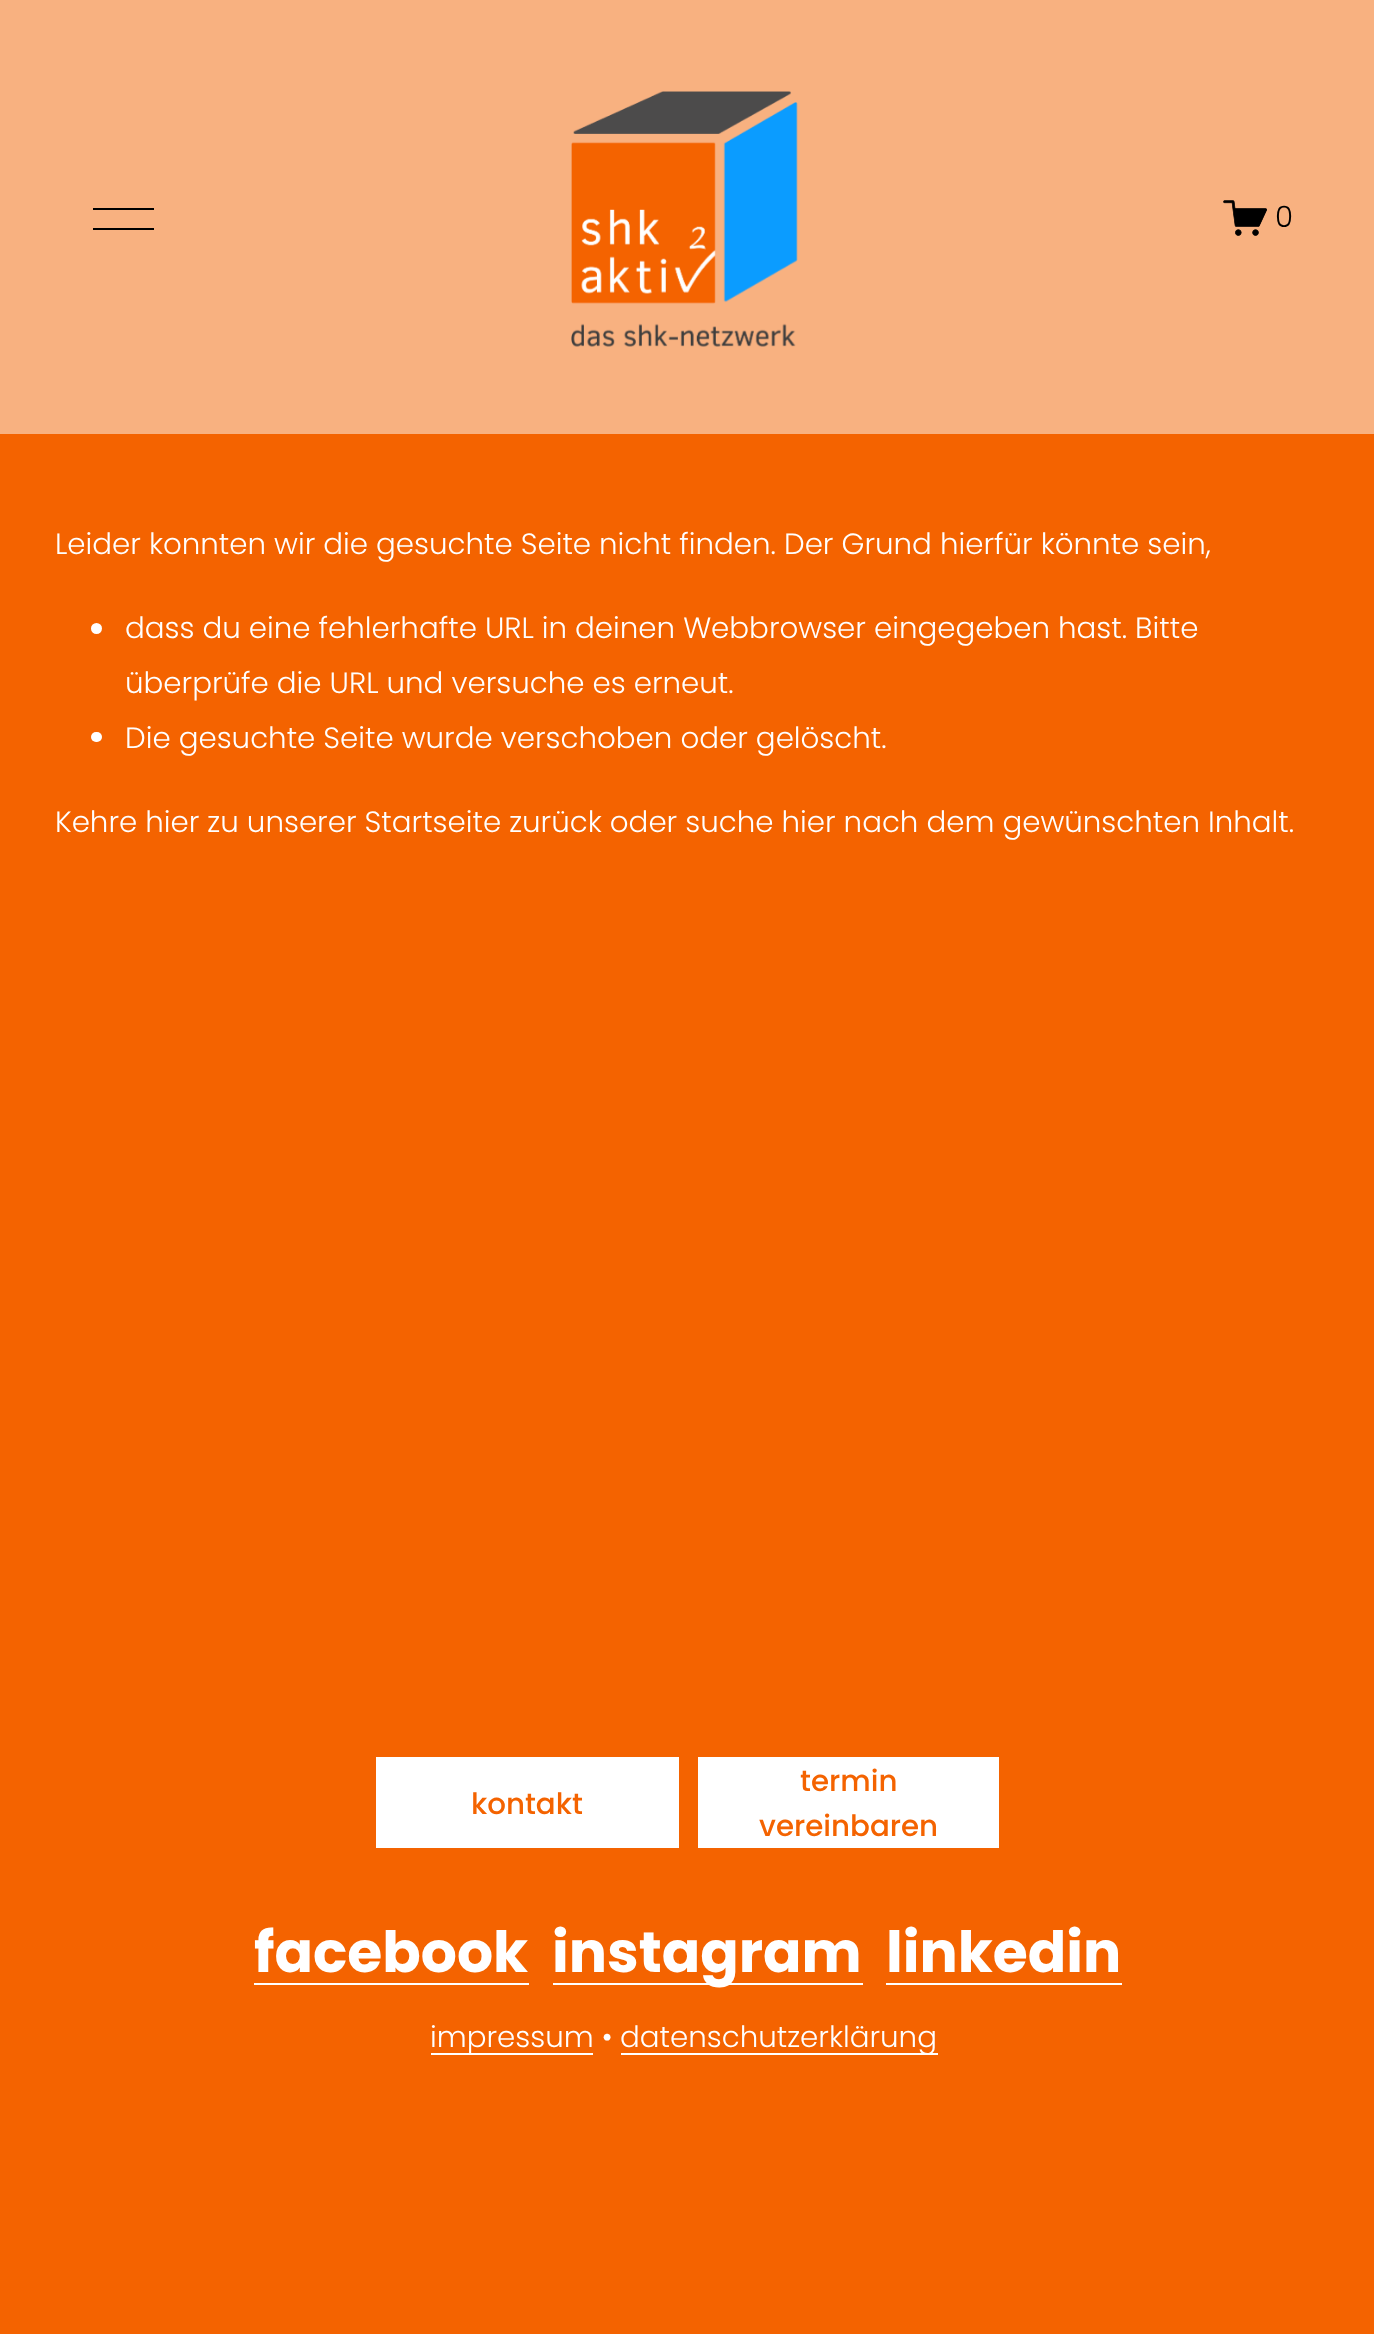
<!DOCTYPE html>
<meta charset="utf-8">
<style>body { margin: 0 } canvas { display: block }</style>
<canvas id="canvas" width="1374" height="2334"></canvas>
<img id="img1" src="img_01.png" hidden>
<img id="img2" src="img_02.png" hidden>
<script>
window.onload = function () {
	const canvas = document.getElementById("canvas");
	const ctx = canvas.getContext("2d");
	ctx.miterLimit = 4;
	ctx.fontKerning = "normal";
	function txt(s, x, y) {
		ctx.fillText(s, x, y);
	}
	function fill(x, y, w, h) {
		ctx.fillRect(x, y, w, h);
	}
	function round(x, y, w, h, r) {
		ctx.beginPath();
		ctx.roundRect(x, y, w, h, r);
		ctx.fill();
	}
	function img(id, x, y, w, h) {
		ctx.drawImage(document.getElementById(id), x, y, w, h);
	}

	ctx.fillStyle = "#F46300";
	fill(0, 0, 1374, 2334);
	ctx.fillStyle = "#F8B180";
	fill(0, 0, 1374, 434);
	ctx.fillStyle = "#000000";
	fill(93, 208, 61, 2);
	fill(93, 228, 61, 2);
	img("img1", 571, 91, 227, 256);
	img("img2", 1223, 200, 44, 36);
	ctx.fillStyle = "#FFFFFF";
	ctx.beginPath();
	ctx.arc(96.5, 628.5, 5.5, 0, Math.PI * 2);
	ctx.fill();
	round(91, 732, 11, 10, 5);
	fill(376, 1757, 303, 91);
	fill(698, 1757, 301, 91);
	fill(254, 1983, 275, 2);
	fill(553, 1983, 310, 2);
	fill(886, 1983, 236, 2);
	fill(431, 2053, 162, 2);
	fill(621, 2053, 317, 2);
	ctx.font = "300 29.3px Poppins";
	ctx.fillStyle = "#000000";
	txt("0", 1275, 227);
	ctx.fillStyle = "#FFFFFF";
	txt("Leider konnten wir die gesuchte Seite nicht finden. Der Grund hierfür könnte sein,", 55, 554);
	txt("dass du eine fehlerhafte URL in deinen Webbrowser eingegeben hast. Bitte", 125, 638);
	txt("überprüfe die URL und versuche es erneut.", 125, 693);
	txt("Die gesuchte Seite wurde verschoben oder gelöscht.", 125, 748);
	txt("Kehre hier zu unserer Startseite zurück oder suche hier nach dem gewünschten Inhalt.", 55, 832);
	ctx.font = "500 29.3px Poppins";
	ctx.fillStyle = "#F46300";
	txt("kontakt", 471, 1814);
	txt("termin", 800, 1791);
	txt("vereinbaren", 759, 1836);
	ctx.font = "bold 56.75px Poppins";
	ctx.fillStyle = "#FFFFFF";
	txt("facebook", 254, 1972);
	txt("instagram", 552, 1972);
	txt("linkedin", 886, 1972);
	ctx.font = "300 29.3px Poppins";
	txt("impressum •", 430, 2047);
	txt("datenschutzerklärung", 620, 2047);
};
</script>
